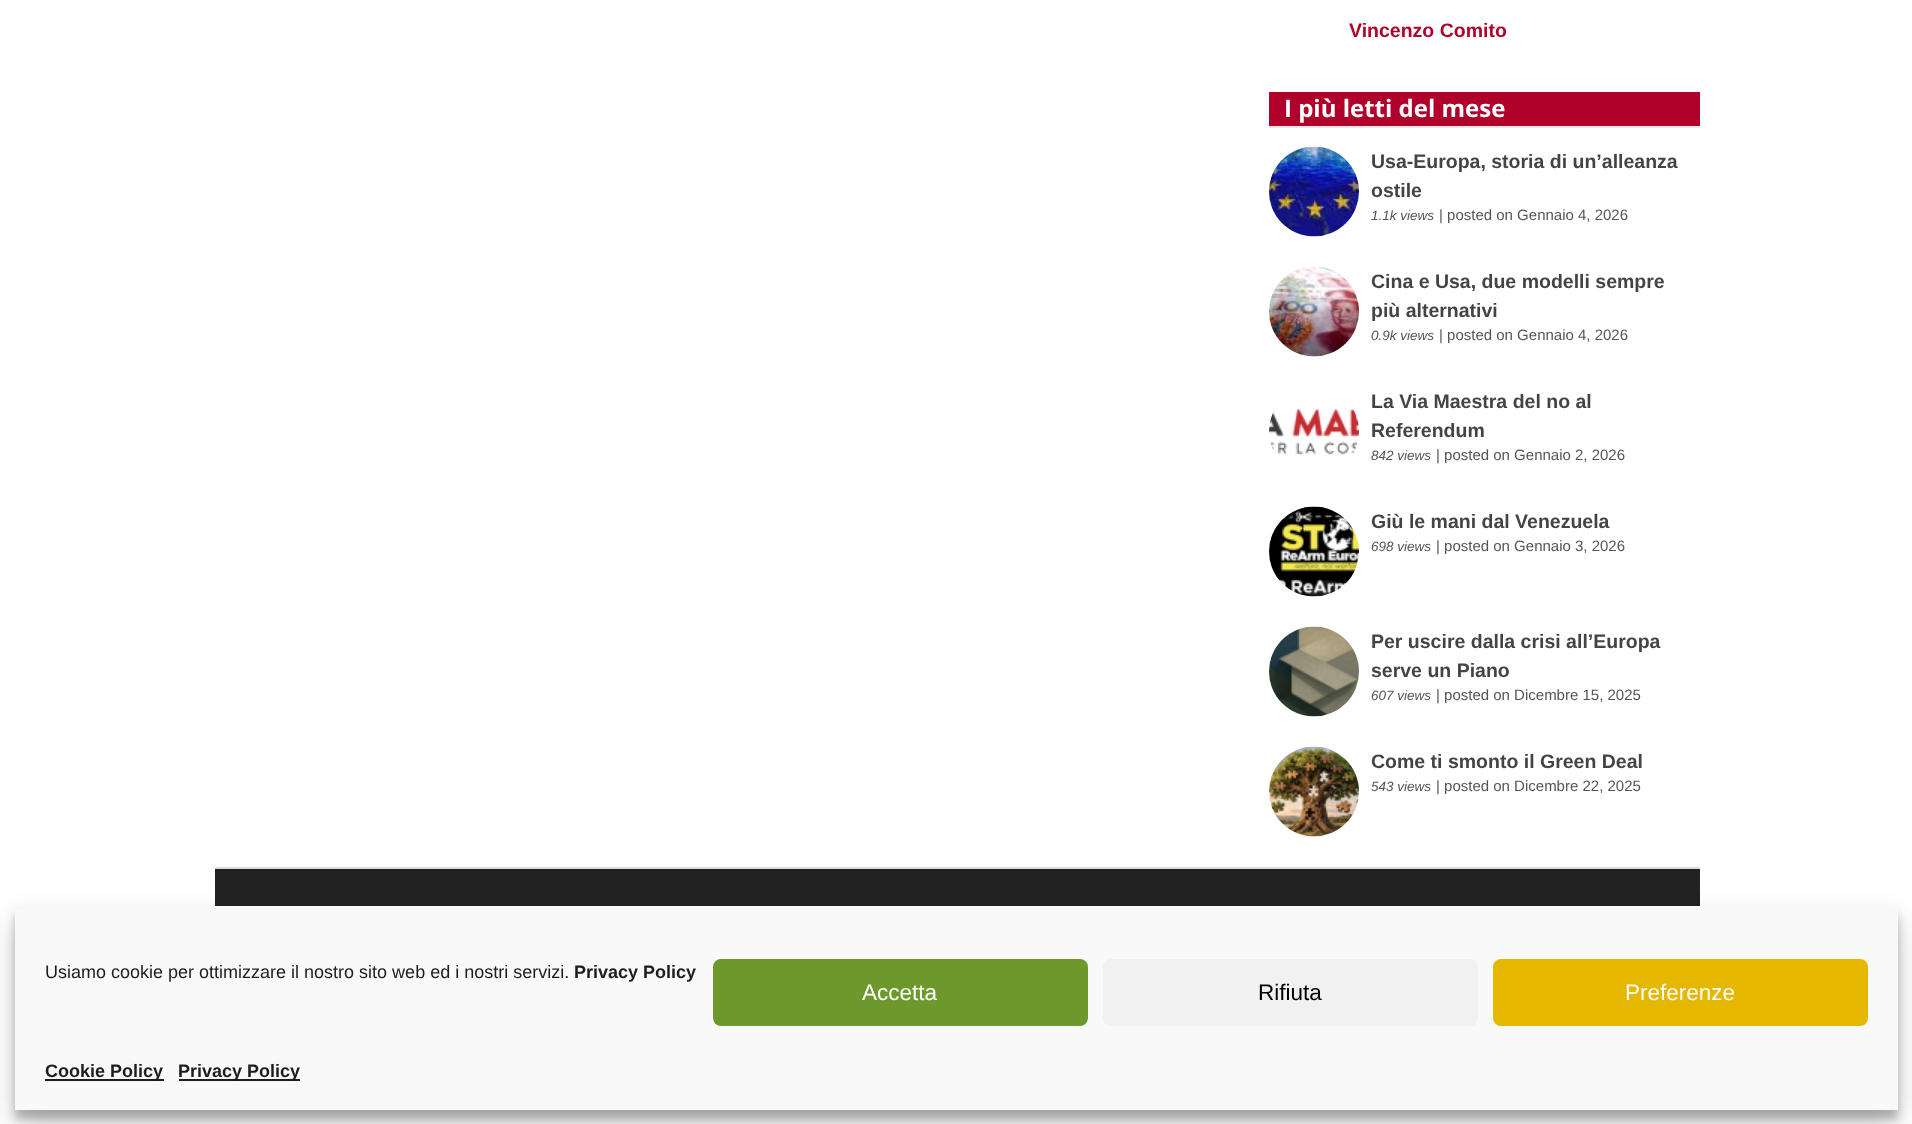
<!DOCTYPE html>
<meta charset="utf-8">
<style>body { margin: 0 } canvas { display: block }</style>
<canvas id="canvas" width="1912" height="1124"></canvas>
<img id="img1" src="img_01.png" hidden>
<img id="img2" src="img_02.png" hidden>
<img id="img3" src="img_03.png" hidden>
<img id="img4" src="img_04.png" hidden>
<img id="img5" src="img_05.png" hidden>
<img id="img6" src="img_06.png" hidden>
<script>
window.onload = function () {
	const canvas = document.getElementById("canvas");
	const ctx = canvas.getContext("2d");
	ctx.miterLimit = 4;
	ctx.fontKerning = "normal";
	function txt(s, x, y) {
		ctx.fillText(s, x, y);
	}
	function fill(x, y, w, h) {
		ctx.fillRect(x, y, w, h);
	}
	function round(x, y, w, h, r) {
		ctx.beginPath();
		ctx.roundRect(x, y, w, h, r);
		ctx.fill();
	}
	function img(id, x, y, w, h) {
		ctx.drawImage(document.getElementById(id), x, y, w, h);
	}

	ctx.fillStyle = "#FFFFFF";
	fill(0, 0, 1912, 1124);
	ctx.fillStyle = "#B0012A";
	fill(1269, 92, 431, 34);
	ctx.fillStyle = "#E6E6E6";
	fill(1269, 126, 431, 2);
	img("img1", 1269, 146, 90, 91);
	img("img2", 1269, 266, 90, 91);
	img("img3", 1269, 408, 90, 47);
	img("img4", 1269, 506, 90, 91);
	img("img5", 1269, 626, 90, 91);
	img("img6", 1269, 746, 90, 91);
	ctx.fillStyle = "#222222";
	fill(215, 869, 1485, 37);
	ctx.fillStyle = "#DBDBDB";
	fill(215, 867, 1485, 2);
	ctx.fillStyle = "rgba(0, 0, 0, 0.23)";
	ctx.filter = "blur(4.5px)";
	ctx.beginPath();
	ctx.rect(15, 915, 1883, 204);
	ctx.fill();
	ctx.filter = "none";
	ctx.fillStyle = "rgba(0, 0, 0, 0.19)";
	ctx.filter = "blur(15px)";
	ctx.beginPath();
	ctx.rect(15, 921, 1883, 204);
	ctx.fill();
	ctx.filter = "none";
	ctx.fillStyle = "#F9F9F9";
	fill(15, 906, 1883, 204);
	ctx.fillStyle = "#6D992C";
	ctx.beginPath();
	ctx.roundRect(714, 960, 373, 65, 7);
	ctx.fill();
	ctx.strokeStyle = "#6D992C";
	ctx.lineWidth = 2;
	ctx.stroke();
	ctx.fillStyle = "#F1F1F1";
	round(1103, 959, 375, 67, 8);
	ctx.fillStyle = "#E5B700";
	ctx.beginPath();
	ctx.roundRect(1494, 960, 373, 65, 7);
	ctx.fill();
	ctx.strokeStyle = "#E5B700";
	ctx.stroke();
	ctx.fillStyle = "#191E23";
	fill(45, 1079, 119, 2);
	fill(179, 1079, 121, 2);
	ctx.font = "bold 19.5px Liberation Sans";
	ctx.fillStyle = "#B0012A";
	txt("Vincenzo Comito", 1349, 37);
	ctx.font = "bold 24px Open Sans";
	ctx.fillStyle = "#FFFFFF";
	txt("I più letti del mese", 1284, 117);
	ctx.font = "bold 19.5px Liberation Sans";
	ctx.fillStyle = "#444444";
	txt("Usa-Europa, storia di un’alleanza", 1371, 168);
	txt("ostile", 1371, 197);
	ctx.font = "italic 13.5px Liberation Sans";
	ctx.fillStyle = "#555555";
	txt("1.1k views", 1371, 220);
	ctx.font = "15px Liberation Sans";
	txt("| posted on Gennaio 4, 2026", 1439, 220);
	ctx.font = "bold 19.5px Liberation Sans";
	ctx.fillStyle = "#444444";
	txt("Cina e Usa, due modelli sempre", 1371, 288);
	txt("più alternativi", 1371, 317);
	ctx.font = "italic 13.5px Liberation Sans";
	ctx.fillStyle = "#555555";
	txt("0.9k views", 1371, 340);
	ctx.font = "15px Liberation Sans";
	txt("| posted on Gennaio 4, 2026", 1439, 340);
	ctx.font = "bold 19.5px Liberation Sans";
	ctx.fillStyle = "#444444";
	txt("La Via Maestra del no al", 1371, 408);
	txt("Referendum", 1371, 437);
	ctx.font = "italic 13.5px Liberation Sans";
	ctx.fillStyle = "#555555";
	txt("842 views", 1371, 460);
	ctx.font = "15px Liberation Sans";
	txt("| posted on Gennaio 2, 2026", 1436, 460);
	ctx.font = "bold 19.5px Liberation Sans";
	ctx.fillStyle = "#444444";
	txt("Giù le mani dal Venezuela", 1371, 528);
	ctx.font = "italic 13.5px Liberation Sans";
	ctx.fillStyle = "#555555";
	txt("698 views", 1371, 551);
	ctx.font = "15px Liberation Sans";
	txt("| posted on Gennaio 3, 2026", 1436, 551);
	ctx.font = "bold 19.5px Liberation Sans";
	ctx.fillStyle = "#444444";
	txt("Per uscire dalla crisi all’Europa", 1371, 648);
	txt("serve un Piano", 1371, 677);
	ctx.font = "italic 13.5px Liberation Sans";
	ctx.fillStyle = "#555555";
	txt("607 views", 1371, 700);
	ctx.font = "15px Liberation Sans";
	txt("| posted on Dicembre 15, 2025", 1436, 700);
	ctx.font = "bold 19.5px Liberation Sans";
	ctx.fillStyle = "#444444";
	txt("Come ti smonto il Green Deal", 1371, 768);
	ctx.font = "italic 13.5px Liberation Sans";
	ctx.fillStyle = "#555555";
	txt("543 views", 1371, 791);
	ctx.font = "15px Liberation Sans";
	txt("| posted on Dicembre 22, 2025", 1436, 791);
	ctx.font = "18px Liberation Sans";
	ctx.fillStyle = "#191E23";
	txt("Usiamo cookie per ottimizzare il nostro sito web ed i nostri servizi.", 45, 978);
	ctx.font = "bold 18px Liberation Sans";
	txt("Privacy Policy", 574, 978);
	ctx.font = "22.5px Liberation Sans";
	ctx.fillStyle = "#FFFFFF";
	txt("Accetta", 862, 1000);
	ctx.fillStyle = "#000000";
	txt("Rifiuta", 1258, 1000);
	ctx.fillStyle = "#FFFFFF";
	txt("Preferenze", 1625, 1000);
	ctx.font = "bold 18px Liberation Sans";
	ctx.fillStyle = "#191E23";
	txt("Cookie Policy", 45, 1077);
	txt("Privacy Policy", 178, 1077);
};
</script>
